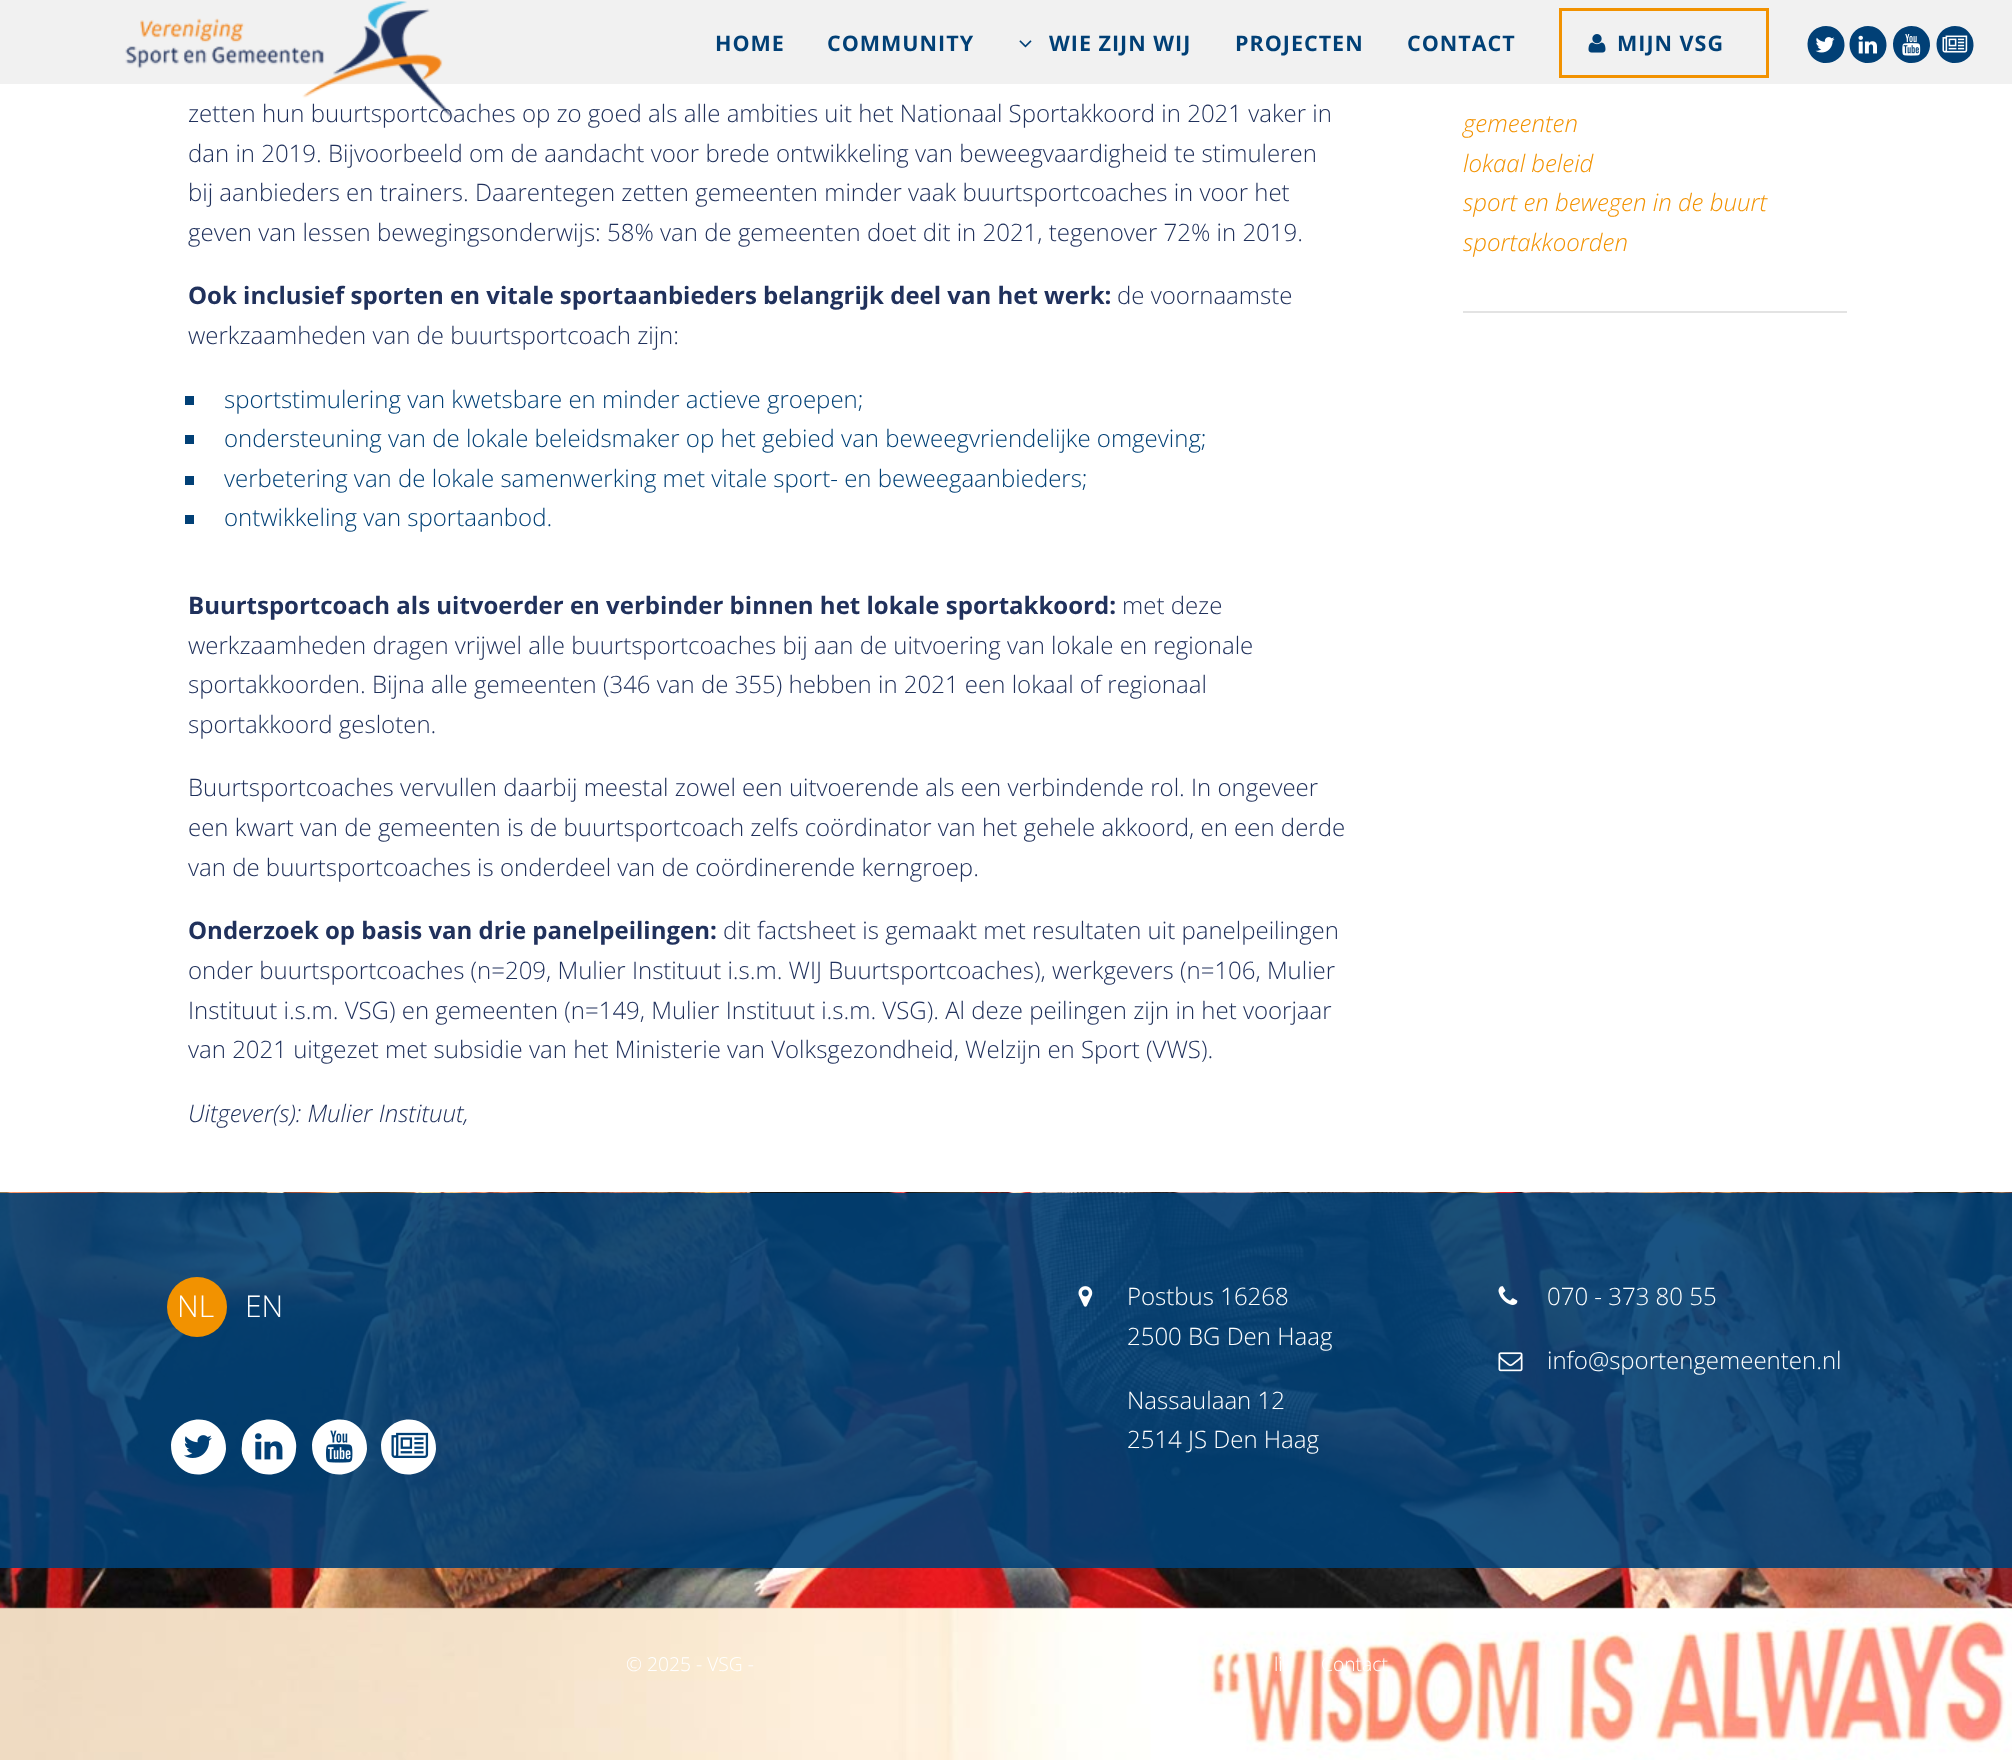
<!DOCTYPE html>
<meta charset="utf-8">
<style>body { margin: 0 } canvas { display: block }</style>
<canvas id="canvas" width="2012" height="1760"></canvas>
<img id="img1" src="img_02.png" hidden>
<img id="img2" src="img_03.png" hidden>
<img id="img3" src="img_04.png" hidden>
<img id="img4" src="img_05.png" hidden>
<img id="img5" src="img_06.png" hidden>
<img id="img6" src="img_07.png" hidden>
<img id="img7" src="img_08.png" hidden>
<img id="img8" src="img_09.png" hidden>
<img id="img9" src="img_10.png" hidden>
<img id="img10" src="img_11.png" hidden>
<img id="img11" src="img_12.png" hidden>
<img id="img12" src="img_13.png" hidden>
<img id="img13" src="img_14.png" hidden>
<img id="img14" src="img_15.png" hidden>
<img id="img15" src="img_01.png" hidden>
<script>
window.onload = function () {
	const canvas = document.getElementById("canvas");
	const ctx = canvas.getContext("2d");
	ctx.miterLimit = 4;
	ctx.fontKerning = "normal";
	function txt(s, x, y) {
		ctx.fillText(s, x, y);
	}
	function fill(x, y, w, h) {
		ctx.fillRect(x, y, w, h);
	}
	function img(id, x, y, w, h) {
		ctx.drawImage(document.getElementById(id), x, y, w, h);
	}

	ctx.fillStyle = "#FFFFFF";
	fill(0, 0, 2012, 1760);
	ctx.fillStyle = "#F1F1F1";
	fill(0, 0, 2012, 84);
	img("img1", 1019, 40, 13, 8);
	ctx.strokeStyle = "#F29200";
	ctx.lineWidth = 3;
	ctx.strokeRect(1560.5, 9.5, 207, 67);
	img("img2", 1588, 34, 18, 19);
	ctx.fillStyle = "#014076";
	ctx.beginPath();
	ctx.moveTo(1842, 35.5);
	ctx.bezierCurveTo(1844, 38.5, 1844.5, 42, 1844.5, 46);
	ctx.bezierCurveTo(1843.5, 64, 1819, 69.5, 1810, 54);
	ctx.bezierCurveTo(1808, 50.5, 1807.5, 47, 1807.5, 43.5);
	ctx.bezierCurveTo(1808.5, 25, 1833, 19.5, 1842, 35.5);
	ctx.closePath();
	ctx.fill();
	img("img3", 1815, 37, 20, 16);
	ctx.beginPath();
	ctx.moveTo(1884, 35.5);
	ctx.bezierCurveTo(1886, 38.5, 1886.5, 42, 1886.5, 46);
	ctx.bezierCurveTo(1885.5, 64, 1861, 69.5, 1852, 54);
	ctx.bezierCurveTo(1850, 50.5, 1849.5, 47, 1849.5, 43.5);
	ctx.bezierCurveTo(1850.5, 25, 1875, 19.5, 1884, 35.5);
	ctx.closePath();
	ctx.fill();
	img("img4", 1858, 35, 19, 19);
	ctx.beginPath();
	ctx.moveTo(1927.5, 35.5);
	ctx.bezierCurveTo(1929.5, 38.5, 1930, 42, 1930, 46);
	ctx.bezierCurveTo(1929, 64, 1904.5, 69.5, 1895.5, 54);
	ctx.bezierCurveTo(1893.5, 50.5, 1893, 47, 1893, 43.5);
	ctx.bezierCurveTo(1894, 25, 1918.5, 19.5, 1927.5, 35.5);
	ctx.closePath();
	ctx.fill();
	img("img5", 1902, 34, 19, 22);
	ctx.beginPath();
	ctx.moveTo(1971, 35.5);
	ctx.bezierCurveTo(1973, 38.5, 1973.5, 42, 1973.5, 46);
	ctx.bezierCurveTo(1972.5, 64, 1948, 69.5, 1939, 54);
	ctx.bezierCurveTo(1937, 50.5, 1936.5, 47, 1936.5, 43.5);
	ctx.bezierCurveTo(1937.5, 25, 1962, 19.5, 1971, 35.5);
	ctx.closePath();
	ctx.fill();
	img("img6", 1942, 35, 26, 18);
	fill(185, 396, 9, 9);
	fill(185, 435, 9, 9);
	fill(185, 476, 9, 9);
	fill(185, 515, 9, 9);
	ctx.fillStyle = "#E3E3E3";
	fill(1463, 311, 384, 2);
	img("img7", 0, 1192, 2012, 568);
	ctx.fillStyle = "rgba(1, 64, 118, 0.9)";
	fill(0, 1193, 2012, 375);
	ctx.fillStyle = "#F29200";
	ctx.beginPath();
	ctx.arc(197, 1307, 30, 0, Math.PI * 2);
	ctx.fill();
	ctx.fillStyle = "#FFFFFF";
	ctx.beginPath();
	ctx.moveTo(222, 1433);
	ctx.bezierCurveTo(225, 1438, 226, 1444, 226, 1449);
	ctx.bezierCurveTo(224, 1476, 188, 1484, 175, 1461);
	ctx.bezierCurveTo(172, 1456, 171, 1451, 171, 1445);
	ctx.bezierCurveTo(173, 1418, 209, 1410, 222, 1433);
	ctx.closePath();
	ctx.fill();
	img("img8", 184, 1435, 28, 23);
	ctx.beginPath();
	ctx.moveTo(293, 1433);
	ctx.bezierCurveTo(295, 1438, 297, 1444, 296, 1449);
	ctx.bezierCurveTo(295, 1476, 259, 1484, 245, 1461);
	ctx.bezierCurveTo(242, 1456, 241, 1451, 242, 1445);
	ctx.bezierCurveTo(243, 1418, 279, 1410, 293, 1433);
	ctx.closePath();
	ctx.fill();
	img("img9", 255, 1433, 28, 27);
	ctx.beginPath();
	ctx.moveTo(363, 1433);
	ctx.bezierCurveTo(366, 1438, 367, 1444, 367, 1449);
	ctx.bezierCurveTo(365, 1476, 329, 1484, 316, 1461);
	ctx.bezierCurveTo(313, 1456, 312, 1451, 312, 1445);
	ctx.bezierCurveTo(314, 1418, 350, 1410, 363, 1433);
	ctx.closePath();
	ctx.fill();
	img("img10", 326, 1430, 27, 33);
	ctx.beginPath();
	ctx.moveTo(432, 1433);
	ctx.bezierCurveTo(435, 1438, 436, 1444, 436, 1449);
	ctx.bezierCurveTo(434, 1476, 398, 1484, 385, 1461);
	ctx.bezierCurveTo(382, 1456, 381, 1451, 381, 1445);
	ctx.bezierCurveTo(383, 1418, 419, 1410, 432, 1433);
	ctx.closePath();
	ctx.fill();
	img("img11", 391, 1432, 38, 26);
	img("img12", 1078, 1286, 15, 21);
	img("img13", 1498, 1286, 20, 19);
	img("img14", 1498, 1352, 25, 20);
	ctx.letterSpacing = "1px";
	ctx.font = "bold 21.5px Open Sans";
	ctx.fillStyle = "#014076";
	txt("HOME", 715, 51);
	txt("COMMUNITY", 827, 51);
	txt("WIE ZIJN WIJ", 1049, 51);
	txt("PROJECTEN", 1235, 51);
	txt("CONTACT", 1407, 51);
	txt("MIJN VSG", 1617, 51);
	ctx.letterSpacing = "0px";
	ctx.font = "300 24px Open Sans";
	ctx.fillStyle = "#20315C";
	txt("zetten hun buurtsportcoaches op zo goed als alle ambities uit het Nationaal Sportakkoord in 2021 vaker in", 188, 122);
	img("img15", 125, 1, 329, 118);
	txt("dan in 2019. Bijvoorbeeld om de aandacht voor brede ontwikkeling van beweegvaardigheid te stimuleren", 188, 162);
	txt("bij aanbieders en trainers. Daarentegen zetten gemeenten minder vaak buurtsportcoaches in voor het", 188, 201);
	txt("geven van lessen bewegingsonderwijs: 58% van de gemeenten doet dit in 2021, tegenover 72% in 2019.", 188, 241);
	ctx.font = "bold 24px Open Sans";
	txt("Ook inclusief sporten en vitale sportaanbieders belangrijk deel van het werk:", 188, 304);
	ctx.font = "300 24px Open Sans";
	txt("de voornaamste", 1117, 304);
	txt("werkzaamheden van de buurtsportcoach zijn:", 188, 344);
	ctx.fillStyle = "#014076";
	txt("sportstimulering van kwetsbare en minder actieve groepen;", 224, 408);
	txt("ondersteuning van de lokale beleidsmaker op het gebied van beweegvriendelijke omgeving;", 224, 447);
	txt("verbetering van de lokale samenwerking met vitale sport- en beweegaanbieders;", 224, 487);
	txt("ontwikkeling van sportaanbod.", 224, 526);
	ctx.font = "bold 24px Open Sans";
	ctx.fillStyle = "#20315C";
	txt("Buurtsportcoach als uitvoerder en verbinder binnen het lokale sportakkoord:", 188, 614);
	ctx.font = "300 24px Open Sans";
	txt("met deze", 1122, 614);
	txt("werkzaamheden dragen vrijwel alle buurtsportcoaches bij aan de uitvoering van lokale en regionale", 188, 654);
	txt("sportakkoorden. Bijna alle gemeenten (346 van de 355) hebben in 2021 een lokaal of regionaal", 188, 693);
	txt("sportakkoord gesloten.", 188, 733);
	txt("Buurtsportcoaches vervullen daarbij meestal zowel een uitvoerende als een verbindende rol. In ongeveer", 188, 796);
	txt("een kwart van de gemeenten is de buurtsportcoach zelfs coördinator van het gehele akkoord, en een derde", 188, 836);
	txt("van de buurtsportcoaches is onderdeel van de coördinerende kerngroep.", 188, 876);
	ctx.font = "bold 24px Open Sans";
	txt("Onderzoek op basis van drie panelpeilingen:", 188, 939);
	ctx.font = "300 24px Open Sans";
	txt("dit factsheet is gemaakt met resultaten uit panelpeilingen", 723, 939);
	txt("onder buurtsportcoaches (n=209, Mulier Instituut i.s.m. WIJ Buurtsportcoaches), werkgevers (n=106, Mulier", 188, 979);
	txt("Instituut i.s.m. VSG) en gemeenten (n=149, Mulier Instituut i.s.m. VSG). Al deze peilingen zijn in het voorjaar", 188, 1019);
	txt("van 2021 uitgezet met subsidie van het Ministerie van Volksgezondheid, Welzijn en Sport (VWS).", 188, 1058);
	ctx.font = "italic 300 24px Open Sans";
	txt("Uitgever(s): Mulier Instituut,", 188, 1122);
	ctx.fillStyle = "#F29200";
	txt("gemeenten", 1463, 132);
	txt("lokaal beleid", 1463, 172);
	txt("sport en bewegen in de buurt", 1463, 211);
	txt("sportakkoorden", 1463, 251);
	ctx.font = "300 30px Open Sans";
	ctx.fillStyle = "#FFFFFF";
	txt("NL", 177, 1317);
	txt("EN", 245, 1317);
	ctx.font = "300 24px Open Sans";
	txt("Postbus 16268", 1127, 1305);
	txt("2500 BG Den Haag", 1127, 1345);
	txt("Nassaulaan 12", 1127, 1409);
	txt("2514 JS Den Haag", 1127, 1448);
	txt("070 - 373 80 55", 1547, 1305);
	txt("info@sportengemeenten.nl", 1547, 1369);
	ctx.font = "300 19.25px Open Sans";
	txt("© 2025 - VSG -", 626, 1671);
	txt("li", 1274, 1671);
	txt("Contact", 1321, 1671);
};
</script>
